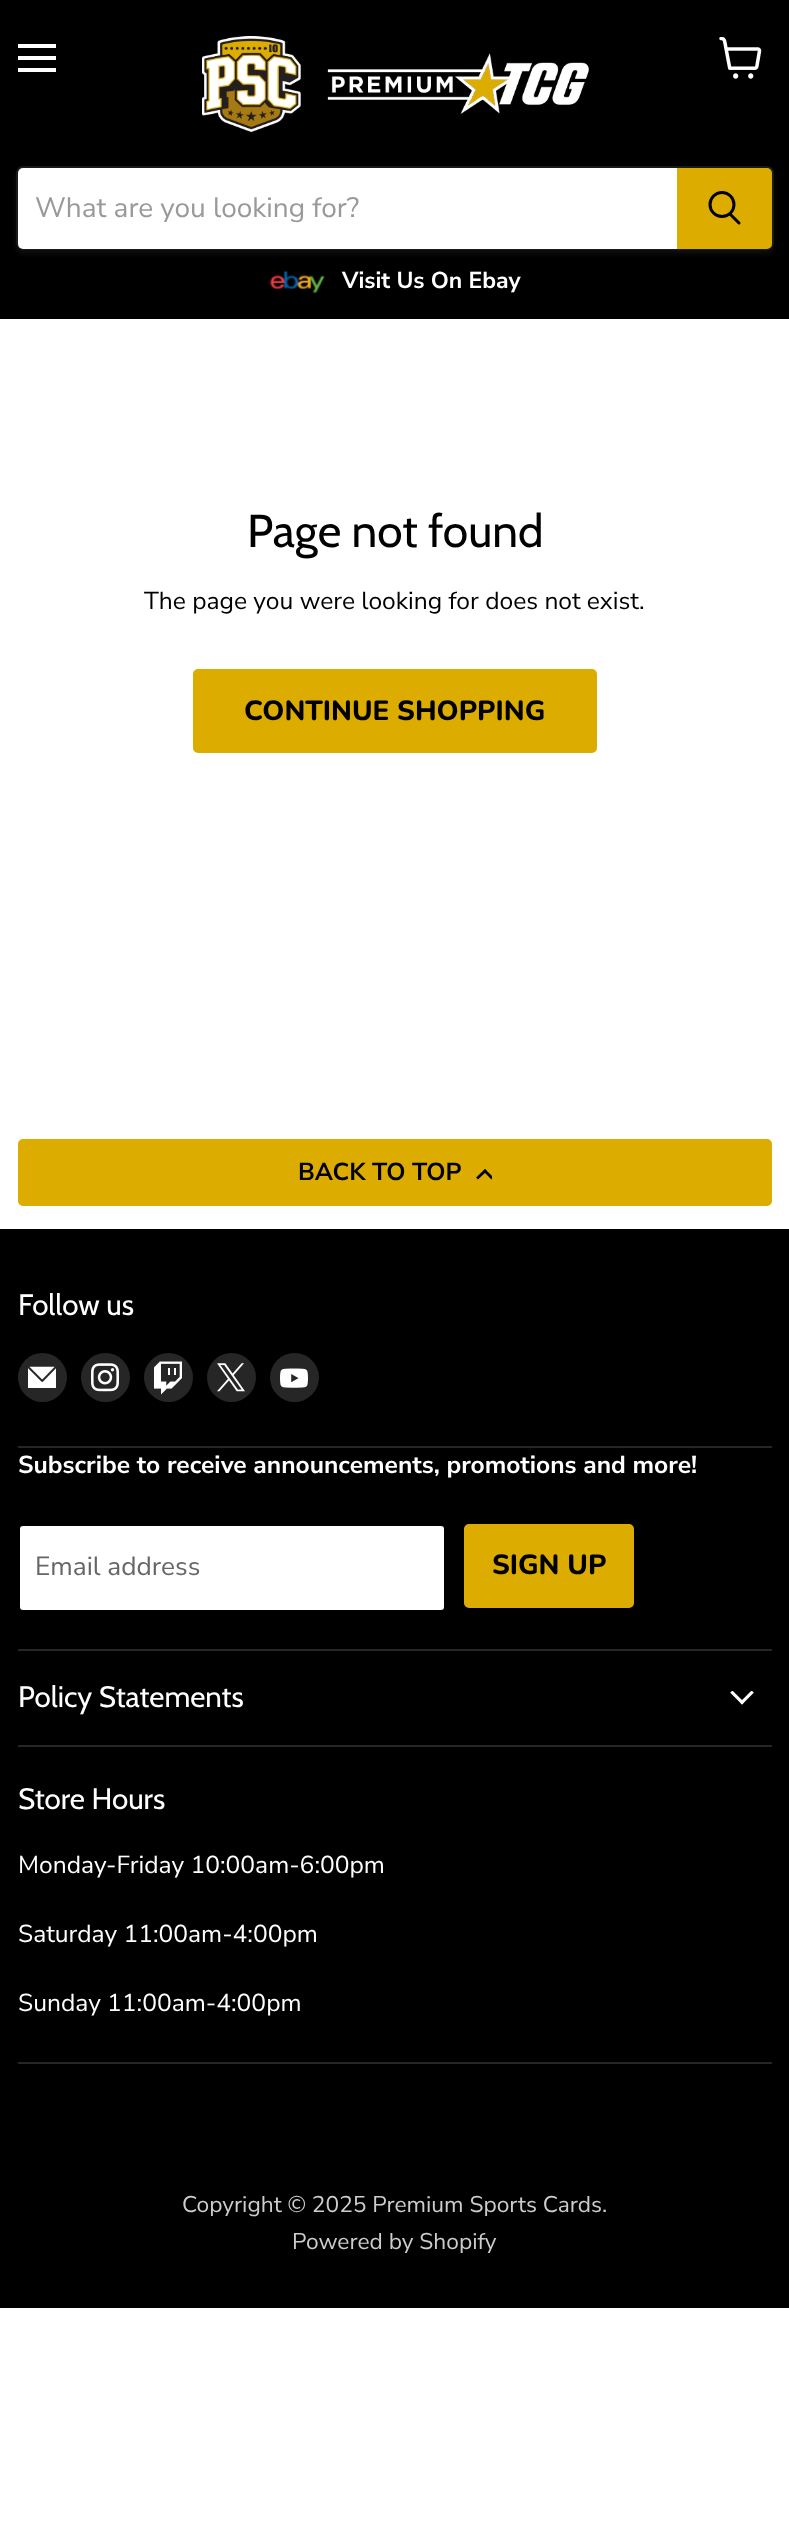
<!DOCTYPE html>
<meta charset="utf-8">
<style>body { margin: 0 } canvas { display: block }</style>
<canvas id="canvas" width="789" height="2521"></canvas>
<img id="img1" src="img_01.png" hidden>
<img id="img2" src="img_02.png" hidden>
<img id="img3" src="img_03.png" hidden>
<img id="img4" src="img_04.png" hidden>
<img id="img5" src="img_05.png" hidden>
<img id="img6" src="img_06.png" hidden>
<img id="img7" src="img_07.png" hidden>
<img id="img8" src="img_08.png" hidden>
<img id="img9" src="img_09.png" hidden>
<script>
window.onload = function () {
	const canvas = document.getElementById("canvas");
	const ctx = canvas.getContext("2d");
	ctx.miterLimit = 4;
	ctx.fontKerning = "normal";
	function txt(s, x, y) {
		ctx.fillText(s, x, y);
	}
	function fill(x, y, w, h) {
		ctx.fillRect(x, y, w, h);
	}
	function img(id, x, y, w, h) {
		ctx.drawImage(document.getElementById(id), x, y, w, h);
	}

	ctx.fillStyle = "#FFFFFF";
	fill(0, 0, 789, 2521);
	ctx.fillStyle = "#000000";
	fill(0, 0, 789, 319);
	ctx.fillStyle = "#FFFFFF";
	fill(18, 44, 38, 4);
	fill(18, 56, 38, 4);
	fill(18, 68, 38, 4);
	img("img1", 719, 37, 43, 42);
	img("img2", 202, 36, 387, 96);
	ctx.save();
	ctx.beginPath();
	ctx.moveTo(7, 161);
	ctx.lineTo(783, 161);
	ctx.lineTo(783, 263);
	ctx.lineTo(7, 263);
	ctx.closePath();
	ctx.moveTo(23, 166);
	ctx.lineTo(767, 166);
	ctx.bezierCurveTo(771, 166, 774, 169, 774, 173);
	ctx.lineTo(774, 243);
	ctx.bezierCurveTo(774, 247, 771, 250, 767, 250);
	ctx.lineTo(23, 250);
	ctx.bezierCurveTo(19, 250, 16, 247, 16, 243);
	ctx.lineTo(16, 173);
	ctx.bezierCurveTo(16, 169, 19, 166, 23, 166);
	ctx.closePath();
	ctx.clip("evenodd");
	ctx.fillStyle = "rgba(128, 128, 128, 0.11)";
	ctx.filter = "blur(2.5px)";
	ctx.beginPath();
	ctx.roundRect(16, 170, 758, 84, 7);
	ctx.fill();
	ctx.filter = "none";
	ctx.restore();
	ctx.beginPath();
	ctx.roundRect(17, 167, 756, 82, 6);
	ctx.strokeStyle = "rgba(128, 128, 128, 0.2)";
	ctx.lineWidth = 2;
	ctx.stroke();
	ctx.beginPath();
	ctx.roundRect(18, 168, 659, 81, [5, 0, 0, 5]);
	ctx.fill();
	ctx.fillStyle = "#DCAD00";
	ctx.beginPath();
	ctx.roundRect(678, 169, 93, 79, [0, 4, 4, 0]);
	ctx.fill();
	ctx.strokeStyle = "#DCAD00";
	ctx.stroke();
	ctx.beginPath();
	ctx.moveTo(739, 223);
	ctx.lineTo(730.5, 214.5);
	ctx.strokeStyle = "#000000";
	ctx.lineWidth = 3;
	ctx.lineCap = "round";
	ctx.stroke();
	ctx.beginPath();
	ctx.arc(722, 204.5, 12, 0, Math.PI * 2);
	ctx.stroke();
	img("img3", 269, 268, 56, 28);
	ctx.beginPath();
	ctx.roundRect(194, 670, 402, 82, 4);
	ctx.fill();
	ctx.strokeStyle = "#DCAD00";
	ctx.lineWidth = 2;
	ctx.stroke();
	ctx.beginPath();
	ctx.roundRect(19, 1140, 752, 65, 4);
	ctx.fill();
	ctx.stroke();
	ctx.beginPath();
	ctx.moveTo(485, 1171);
	ctx.lineTo(478, 1177.5);
	ctx.strokeStyle = "#000000";
	ctx.lineWidth = 2.7;
	ctx.lineCap = "square";
	ctx.stroke();
	ctx.save();
	ctx.beginPath();
	ctx.rect(474, 1167, 18, 13);
	ctx.clip();
	ctx.beginPath();
	ctx.moveTo(485, 1171);
	ctx.lineTo(491.5, 1177.5);
	ctx.stroke();
	ctx.restore();
	ctx.fillStyle = "#000000";
	fill(0, 1229, 789, 1079);
	ctx.fillStyle = "#262626";
	fill(18, 1446, 754, 2);
	ctx.beginPath();
	ctx.arc(42.5, 1377.5, 24.5, 0, Math.PI * 2);
	ctx.fill();
	img("img4", 28, 1366, 28, 22);
	ctx.beginPath();
	ctx.arc(105.5, 1377.5, 24.5, 0, Math.PI * 2);
	ctx.fill();
	img("img5", 91, 1363, 28, 29);
	ctx.beginPath();
	ctx.arc(168.5, 1377.5, 24.5, 0, Math.PI * 2);
	ctx.fill();
	img("img6", 154, 1361, 28, 34);
	ctx.beginPath();
	ctx.arc(231.5, 1377.5, 24.5, 0, Math.PI * 2);
	ctx.fill();
	img("img7", 217, 1363, 28, 29);
	ctx.beginPath();
	ctx.arc(294.5, 1377.5, 24.5, 0, Math.PI * 2);
	ctx.fill();
	img("img8", 280, 1368, 28, 20);
	fill(18, 1649, 754, 2);
	ctx.fillStyle = "#FFFFFF";
	ctx.beginPath();
	ctx.roundRect(19, 1525, 426, 86, 4);
	ctx.fill();
	ctx.lineWidth = 2;
	ctx.stroke();
	ctx.fillStyle = "#DCAD00";
	ctx.beginPath();
	ctx.roundRect(465, 1525, 168, 82, 4);
	ctx.fill();
	ctx.strokeStyle = "#DCAD00";
	ctx.stroke();
	ctx.fillStyle = "#262626";
	fill(18, 1745, 754, 2);
	img("img9", 730, 1691, 24, 14);
	fill(18, 2062, 754, 2);
	ctx.font = "28px Nunito Sans";
	ctx.fillStyle = "#999999";
	txt("What are you looking for?", 35, 217);
	ctx.font = "bold 23px Nunito Sans";
	ctx.fillStyle = "#FFFFFF";
	txt("Visit Us On Ebay", 342, 288);
	ctx.font = "46px Cabin";
	ctx.fillStyle = "#000000";
	txt("Page not found", 247, 547);
	ctx.font = "24.6px Nunito Sans";
	txt("The page you were looking for does not exist.", 144, 609);
	ctx.font = "800 27.75px Nunito";
	txt("CONTINUE SHOPPING", 244, 720);
	ctx.font = "bold 24.5px Nunito Sans";
	txt("BACK TO TOP", 298, 1180);
	ctx.font = "29.5px Cabin";
	ctx.fillStyle = "#FFFFFF";
	txt("Follow us", 18, 1315);
	ctx.font = "bold 24.6px Nunito Sans";
	txt("Subscribe to receive announcements, promotions and more!", 18, 1473);
	ctx.font = "26.25px Nunito Sans";
	ctx.fillStyle = "#666666";
	txt("Email address", 35, 1575);
	ctx.font = "800 27.75px Nunito";
	ctx.fillStyle = "#000000";
	txt("SIGN UP", 492, 1574);
	ctx.font = "29.5px Cabin";
	ctx.fillStyle = "#FFFFFF";
	txt("Policy Statements", 18, 1707);
	txt("Store Hours", 18, 1809);
	ctx.font = "24.6px Nunito Sans";
	txt("Monday-Friday 10:00am-6:00pm", 18, 1873);
	txt("Saturday 11:00am-4:00pm", 18, 1942);
	txt("Sunday 11:00am-4:00pm", 18, 2011);
	ctx.font = "22.75px Nunito Sans";
	ctx.fillStyle = "#CCCCCC";
	txt("Copyright © 2025 Premium Sports Cards.", 182, 2212);
	txt("Powered by Shopify", 292, 2249);
};
</script>
